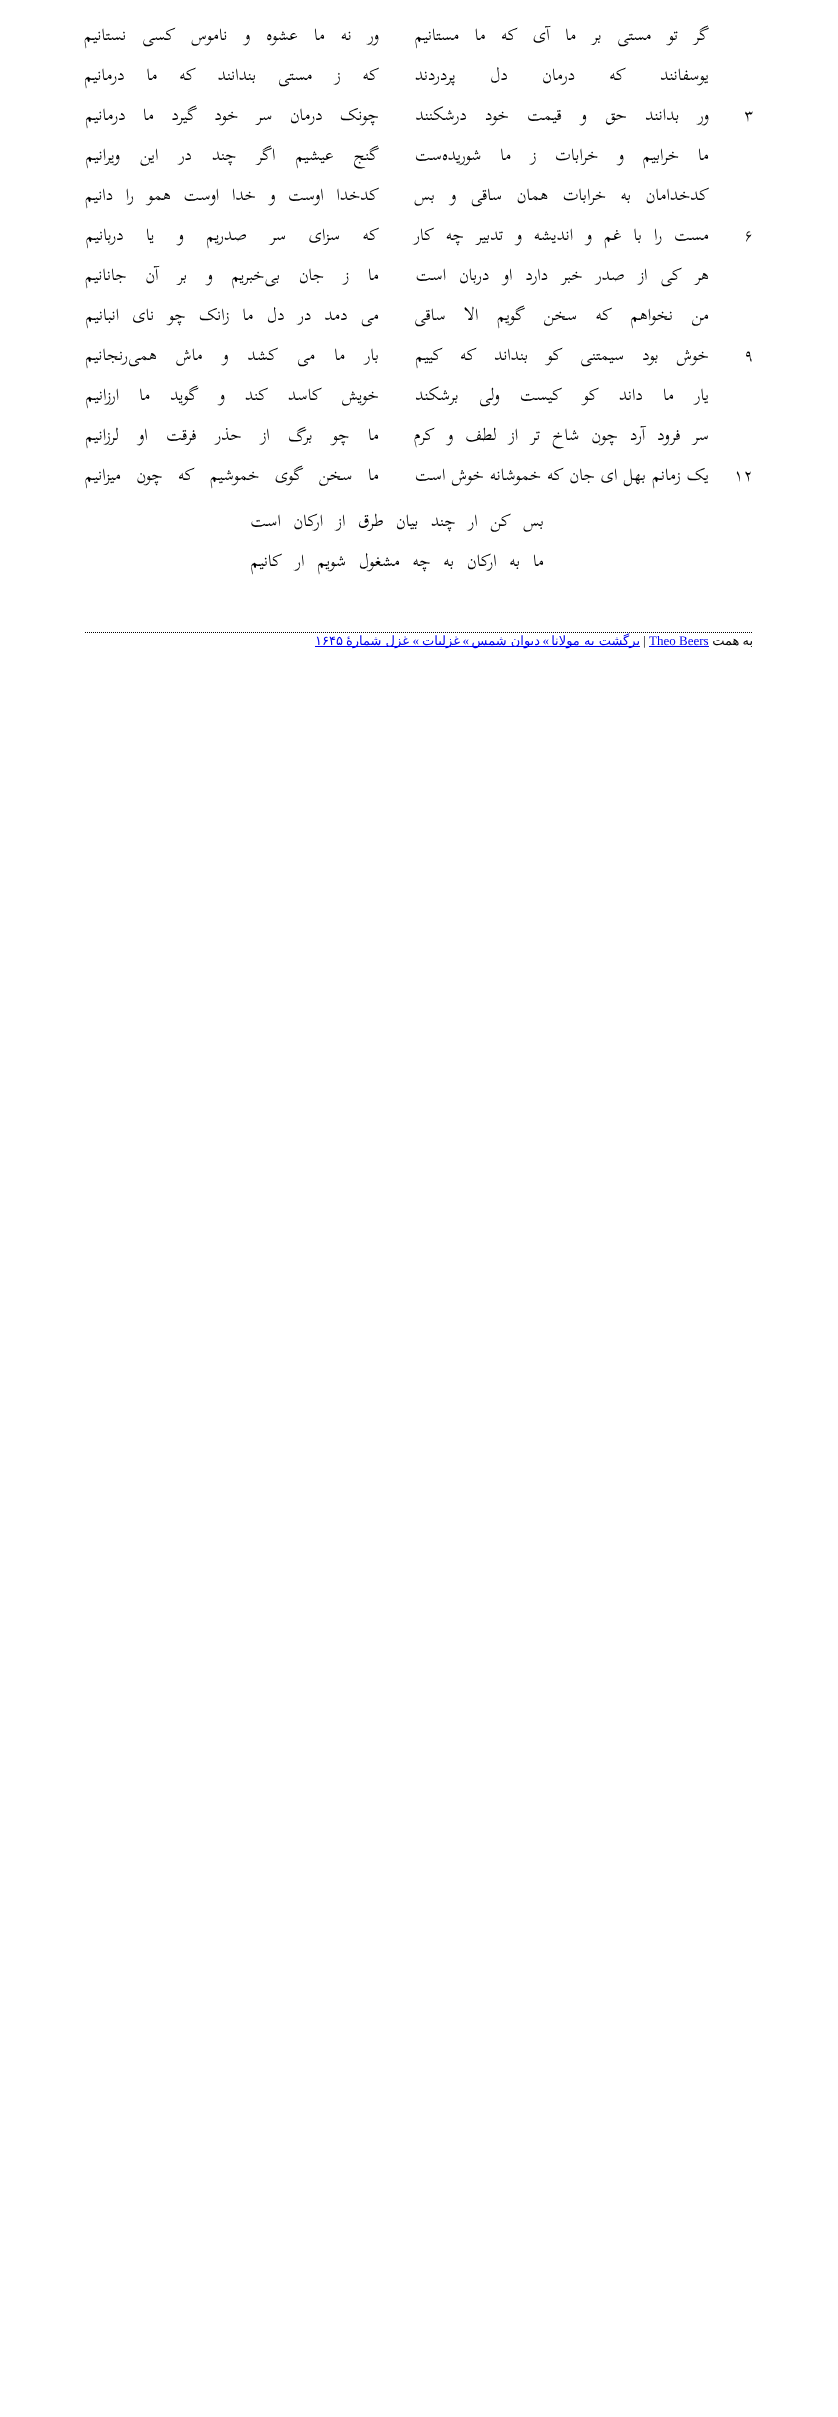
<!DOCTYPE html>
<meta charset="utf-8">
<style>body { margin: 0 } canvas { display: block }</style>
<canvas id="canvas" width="838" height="2417"></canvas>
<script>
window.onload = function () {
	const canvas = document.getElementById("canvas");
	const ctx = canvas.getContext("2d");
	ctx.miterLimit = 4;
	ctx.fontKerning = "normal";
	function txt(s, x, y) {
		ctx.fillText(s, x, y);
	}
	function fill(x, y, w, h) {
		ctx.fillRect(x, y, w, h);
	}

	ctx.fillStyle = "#FFFFFF";
	fill(0, 0, 838, 2417);
	ctx.beginPath();
	ctx.moveTo(85, 632.5);
	ctx.lineTo(753, 632.5);
	ctx.strokeStyle = "#000000";
	ctx.setLineDash([1, 1]);
	ctx.stroke();
	ctx.fillStyle = "#0000EE";
	fill(649, 646, 60, 1);
	fill(315, 646, 325, 1);
	ctx.wordSpacing = "9.5px";
	ctx.direction = "rtl";
	ctx.font = "24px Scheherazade";
	ctx.fillStyle = "#000000";
	txt("گر تو مستی بر ما آی که ما مستانیم", 709, 40);
	ctx.wordSpacing = "10px";
	txt("ور نه ما عشوه و ناموس کسی نستانیم", 379, 40);
	ctx.wordSpacing = "28.5px";
	txt("یوسفانند که درمان دل پردردند", 709, 80);
	ctx.wordSpacing = "16px";
	txt("که ز مستی بندانند که ما درمانیم", 379, 80);
	ctx.wordSpacing = "0px";
	ctx.direction = "ltr";
	txt("۳", 744, 120);
	ctx.wordSpacing = "12.25px";
	ctx.direction = "rtl";
	txt("ور بدانند حق و قیمت خود درشکنند", 709, 120);
	ctx.wordSpacing = "11.5px";
	txt("چونک درمان سر خود گیرد ما درمانیم", 379, 120);
	ctx.wordSpacing = "12.75px";
	txt("ما خرابیم و خرابات ز ما شوریده‌ست", 709, 160);
	ctx.wordSpacing = "14px";
	txt("گنج عیشیم اگر چند در این ویرانیم", 379, 160);
	ctx.wordSpacing = "8.5px";
	txt("کدخدامان به خرابات همان ساقی و بس", 709, 200);
	ctx.wordSpacing = "6.75px";
	txt("کدخدا اوست و خدا اوست همو را دانیم", 379, 200);
	ctx.wordSpacing = "0px";
	ctx.direction = "ltr";
	txt("۶", 744, 240);
	ctx.wordSpacing = "6px";
	ctx.direction = "rtl";
	txt("مست را با غم و اندیشه و تدبیر چه کار", 709, 240);
	ctx.wordSpacing = "16.5px";
	txt("که سزای سر صدریم و یا دربانیم", 379, 240);
	ctx.wordSpacing = "7px";
	txt("هر کی از صدر خبر دارد او دربان است", 709, 280);
	ctx.wordSpacing = "12.75px";
	txt("ما ز جان بی‌خبریم و بر آن جانانیم", 379, 280);
	ctx.wordSpacing = "12.5px";
	txt("من نخواهم که سخن گویم الا ساقی", 709, 320);
	ctx.wordSpacing = "7.25px";
	txt("می دمد در دل ما زانک چو نای انبانیم", 379, 320);
	ctx.wordSpacing = "0px";
	ctx.direction = "ltr";
	txt("۹", 744, 360);
	ctx.wordSpacing = "11.75px";
	ctx.direction = "rtl";
	txt("خوش بود سیمتنی کو بنداند که کییم", 709, 360);
	ctx.wordSpacing = "13px";
	txt("بار ما می کشد و ماش همی‌رنجانیم", 379, 360);
	ctx.wordSpacing = "14.25px";
	txt("یار ما داند کو کیست ولی برشکند", 709, 400);
	ctx.wordSpacing = "14px";
	txt("خویش کاسد کند و گوید ما ارزانیم", 379, 400);
	ctx.wordSpacing = "6px";
	txt("سر فرود آرد چون شاخ تر از لطف و کرم", 709, 440);
	ctx.wordSpacing = "12.5px";
	txt("ما چو برگ از حذر فرقت او لرزانیم", 379, 440);
	ctx.wordSpacing = "0px";
	ctx.direction = "ltr";
	txt("۱۲", 734, 480);
	ctx.direction = "rtl";
	txt("یک زمانم بهل ای جان که خموشانه خوش است", 709, 480);
	ctx.wordSpacing = "9.5px";
	txt("ما سخن گوی خموشیم که چون میزانیم", 379, 480);
	ctx.wordSpacing = "6.5px";
	txt("بس کن ار چند بیان طرق از ارکان است", 544, 526);
	ctx.wordSpacing = "6.75px";
	txt("ما به ارکان به چه مشغول شویم ار کانیم", 544, 566);
	ctx.wordSpacing = "-1px";
	ctx.font = "13px DejaVu Sans";
	txt("به همت", 753, 645);
	ctx.wordSpacing = "0px";
	ctx.direction = "ltr";
	ctx.font = "13px Liberation Serif";
	ctx.fillStyle = "#0000EE";
	txt("Theo Beers", 649, 645);
	ctx.fillStyle = "#000000";
	txt("|", 643, 645);
	ctx.direction = "rtl";
	ctx.font = "13px DejaVu Sans";
	ctx.fillStyle = "#0000EE";
	txt("برگشت به مولانا", 640, 645);
	ctx.font = "13px Liberation Serif";
	txt("»", 549, 645);
	ctx.font = "13px DejaVu Sans";
	txt("دیوان شمس", 540, 645);
	ctx.font = "13px Liberation Serif";
	txt("»", 469, 645);
	ctx.font = "13px DejaVu Sans";
	txt("غزلیات", 460, 645);
	ctx.font = "13px Liberation Serif";
	txt("»", 419, 645);
	ctx.font = "13px DejaVu Sans";
	txt("غزل شمارهٔ", 409, 645);
	ctx.direction = "ltr";
	txt("۱۶۴۵", 315, 645);
};
</script>
